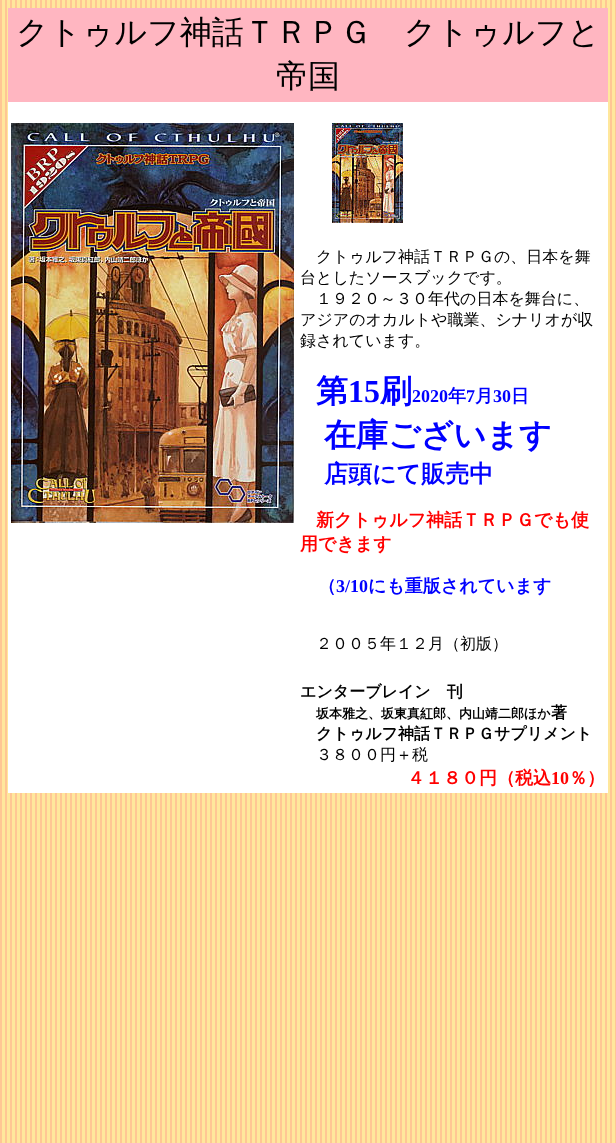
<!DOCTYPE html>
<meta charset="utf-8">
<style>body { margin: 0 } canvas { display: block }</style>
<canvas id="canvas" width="616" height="1143"></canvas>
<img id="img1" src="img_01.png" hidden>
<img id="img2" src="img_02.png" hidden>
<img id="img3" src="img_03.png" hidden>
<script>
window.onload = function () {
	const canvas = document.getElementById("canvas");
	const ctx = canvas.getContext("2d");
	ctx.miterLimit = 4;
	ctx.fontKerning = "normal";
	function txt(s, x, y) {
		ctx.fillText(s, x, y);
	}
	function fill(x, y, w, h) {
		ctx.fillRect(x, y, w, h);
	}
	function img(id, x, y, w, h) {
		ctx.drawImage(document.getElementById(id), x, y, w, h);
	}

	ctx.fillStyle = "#FFFFFF";
	fill(0, 0, 616, 1143);
	img("img1", 0, 0, 616, 1143);
	fill(8, 102, 600, 691);
	ctx.fillStyle = "#FFB6C1";
	fill(8, 8, 600, 94);
	img("img2", 11, 123, 283, 400);
	img("img3", 332, 123, 71, 100);
	ctx.font = "500 32px WenQuanYi Zen Hei";
	ctx.fillStyle = "#000000";
	txt("クトゥルフ神話ＴＲＰＧ　クトゥルフと", 16, 43);
	txt("帝国", 276, 87);
	ctx.font = "500 16px WenQuanYi Zen Hei";
	txt("クトゥルフ神話ＴＲＰＧの、日本を舞", 316, 262);
	txt("台としたソースブックです。", 300, 283);
	txt("１９２０～３０年代の日本を舞台に、", 316, 304);
	txt("アジアのオカルトや職業、シナリオが収", 300, 325);
	txt("録されています。", 300, 346);
	ctx.font = "bold 32px WenQuanYi Zen Hei";
	ctx.fillStyle = "#0000FF";
	txt("第", 316, 402);
	ctx.font = "bold 32px Liberation Serif";
	txt("15", 348, 402);
	ctx.font = "bold 32px WenQuanYi Zen Hei";
	txt("刷", 380, 402);
	ctx.font = "bold 18px Liberation Serif";
	txt("2020", 412, 402);
	ctx.font = "bold 18px WenQuanYi Zen Hei";
	txt("年", 448, 402);
	ctx.font = "bold 18px Liberation Serif";
	txt("7", 466, 402);
	ctx.font = "bold 18px WenQuanYi Zen Hei";
	txt("月", 475, 402);
	ctx.font = "bold 18px Liberation Serif";
	txt("30", 493, 402);
	ctx.font = "bold 18px WenQuanYi Zen Hei";
	txt("日", 511, 402);
	ctx.font = "bold 32px WenQuanYi Zen Hei";
	txt("在庫ございます", 324, 446);
	ctx.font = "bold 24px WenQuanYi Zen Hei";
	txt("店頭にて販売中", 324, 482);
	ctx.font = "bold 18px WenQuanYi Zen Hei";
	ctx.fillStyle = "#FF0000";
	txt("新クトゥルフ神話ＴＲＰＧでも使", 316, 526);
	txt("用できます", 300, 550);
	ctx.fillStyle = "#0000FF";
	txt("（", 318, 592);
	ctx.font = "bold 18px Liberation Serif";
	txt("3/10", 336, 592);
	ctx.font = "bold 18px WenQuanYi Zen Hei";
	txt("にも重版されています", 368, 592);
	ctx.font = "500 16px WenQuanYi Zen Hei";
	ctx.fillStyle = "#000000";
	txt("２００５年１２月（初版）", 316, 649);
	ctx.font = "bold 16px WenQuanYi Zen Hei";
	txt("エンターブレイン　刊", 300, 697);
	ctx.font = "bold 13px WenQuanYi Zen Hei";
	txt("坂本雅之、坂東真紅郎、内山靖二郎ほか", 316, 718);
	ctx.font = "bold 16px WenQuanYi Zen Hei";
	txt("著", 551, 718);
	txt("クトゥルフ神話ＴＲＰＧサプリメント", 316, 739);
	ctx.font = "500 16px WenQuanYi Zen Hei";
	txt("３８００円＋税", 316, 760);
	ctx.font = "bold 18px WenQuanYi Zen Hei";
	ctx.fillStyle = "#FF0000";
	txt("４１８０円（税込", 407, 784);
	ctx.font = "bold 18px Liberation Serif";
	txt("10", 551, 784);
	ctx.font = "bold 18px WenQuanYi Zen Hei";
	txt("％）", 569, 784);
};
</script>
